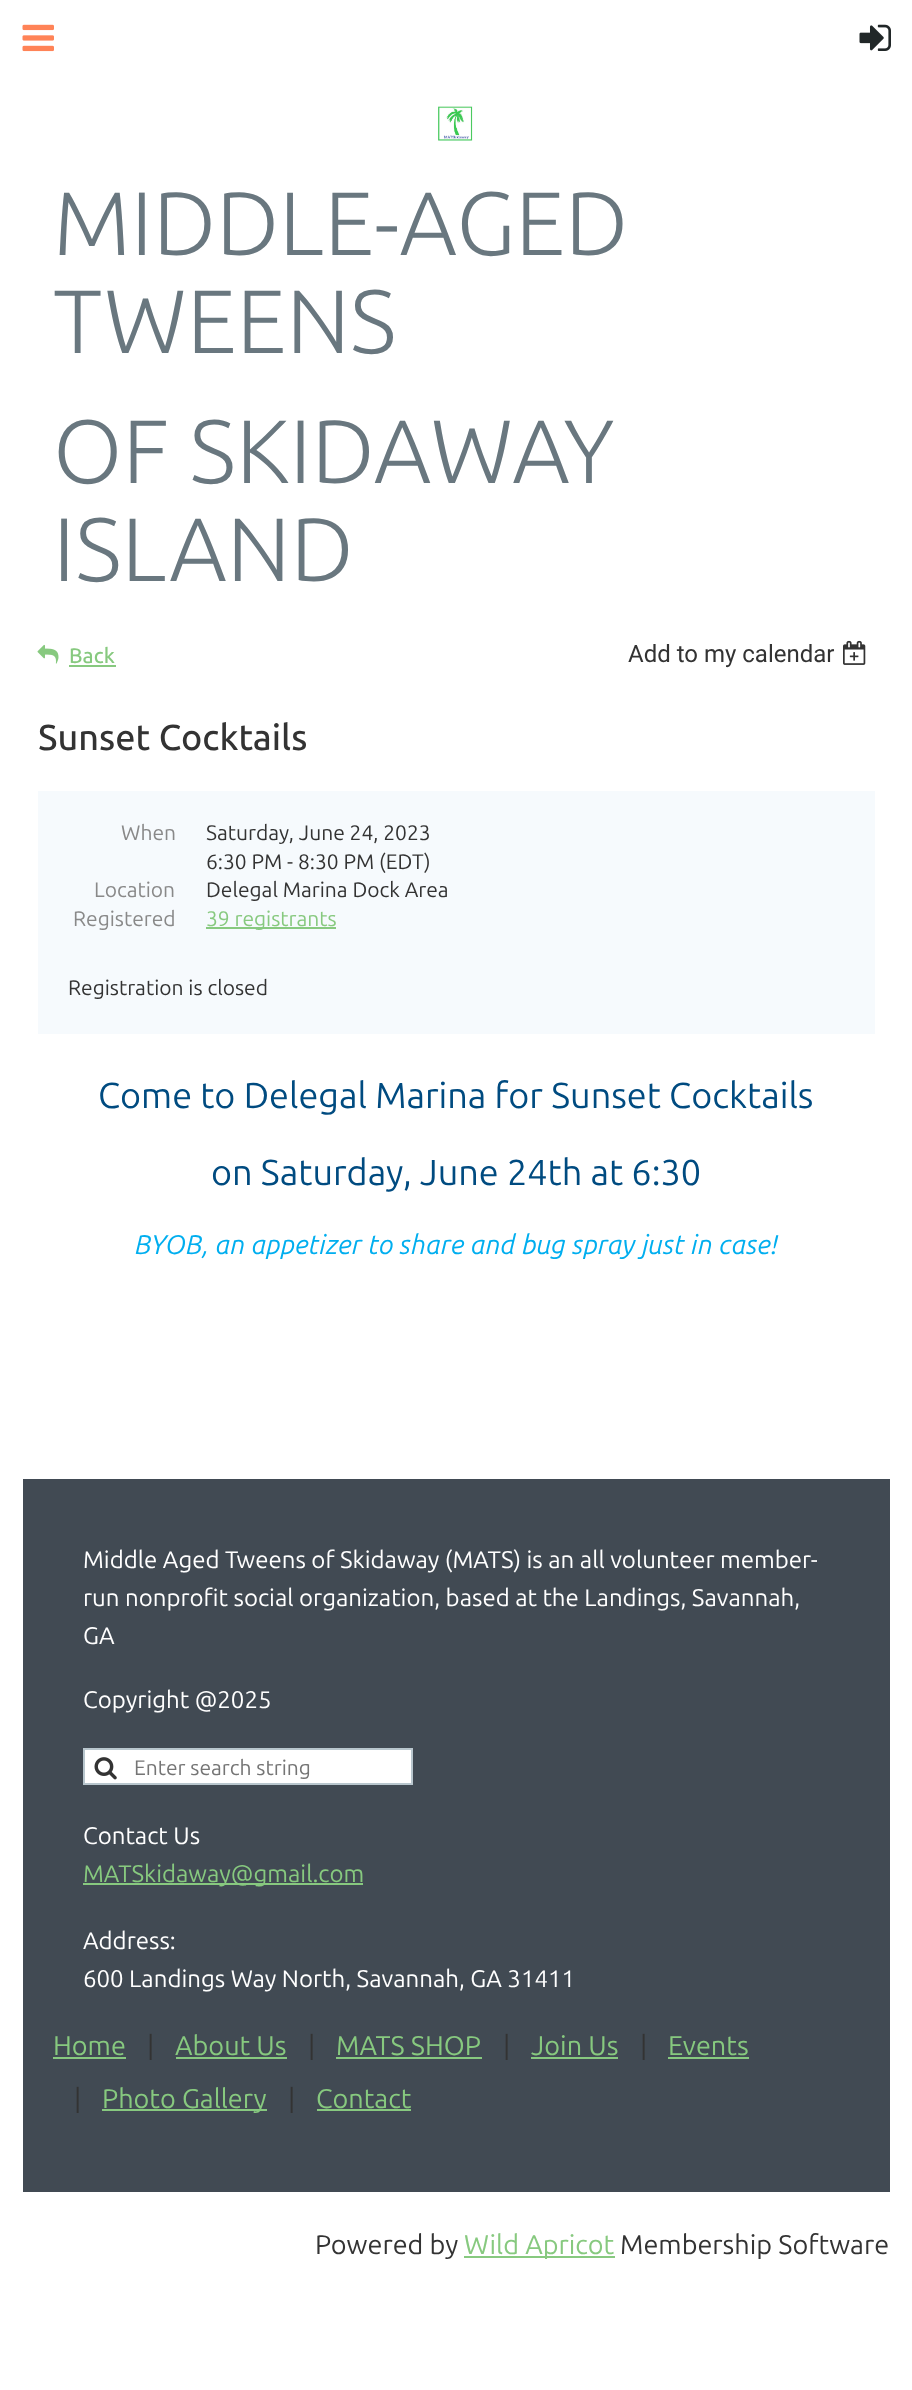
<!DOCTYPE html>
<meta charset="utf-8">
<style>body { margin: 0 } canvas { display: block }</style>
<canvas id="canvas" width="912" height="2390"></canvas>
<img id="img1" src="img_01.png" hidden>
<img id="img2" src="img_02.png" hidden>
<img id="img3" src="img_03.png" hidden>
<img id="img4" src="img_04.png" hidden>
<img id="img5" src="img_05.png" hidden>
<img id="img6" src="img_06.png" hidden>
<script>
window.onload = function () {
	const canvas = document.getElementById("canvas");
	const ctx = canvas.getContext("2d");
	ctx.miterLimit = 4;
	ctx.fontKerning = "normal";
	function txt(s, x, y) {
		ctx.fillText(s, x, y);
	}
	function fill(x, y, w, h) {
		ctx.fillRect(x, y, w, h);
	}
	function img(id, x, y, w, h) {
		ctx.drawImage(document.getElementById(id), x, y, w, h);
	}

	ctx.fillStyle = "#FFFFFF";
	fill(0, 0, 912, 2390);
	img("img1", 22, 24, 32, 28);
	img("img2", 859, 24, 32, 27);
	img("img3", 438, 106, 35, 35);
	img("img4", 37, 644, 22, 20);
	ctx.fillStyle = "#87C97F";
	fill(69, 665, 47, 2);
	img("img5", 843, 640, 23, 25);
	ctx.fillStyle = "#F6FAFD";
	fill(38, 791, 837, 243);
	ctx.fillStyle = "#87C97F";
	fill(206, 927, 130, 2);
	ctx.fillStyle = "#414A53";
	fill(23, 1479, 867, 713);
	ctx.fillStyle = "#FFFFFF";
	ctx.beginPath();
	ctx.rect(84, 1749, 328, 35);
	ctx.fill();
	ctx.strokeStyle = "#B8C6CD";
	ctx.lineWidth = 2;
	ctx.stroke();
	img("img6", 94, 1757, 23, 23);
	ctx.fillStyle = "#87C97F";
	fill(83, 1883, 280, 2);
	fill(53, 2057, 73, 2);
	fill(176, 2057, 111, 2);
	fill(336, 2057, 146, 2);
	fill(531, 2057, 87, 2);
	fill(668, 2057, 81, 2);
	fill(102, 2109, 165, 2);
	fill(317, 2109, 94, 2);
	fill(464, 2256, 151, 2);
	ctx.font = "300 90px Ubuntu";
	ctx.fillStyle = "#69777F";
	txt("MIDDLE-AGED", 53, 255);
	txt("TWEENS", 53, 353);
	txt("OF SKIDAWAY", 53, 483);
	txt("ISLAND", 53, 581);
	ctx.font = "500 21px Ubuntu";
	ctx.fillStyle = "#87C97F";
	txt("Back", 69, 663);
	ctx.font = "24px Roboto";
	ctx.fillStyle = "#333333";
	txt("Add to my calendar", 628, 662);
	ctx.font = "500 36px Ubuntu";
	txt("Sunset Cocktails", 38, 750);
	ctx.font = "21px Ubuntu";
	ctx.fillStyle = "#898989";
	txt("When", 121, 840);
	ctx.fillStyle = "#333333";
	txt("Saturday, June 24, 2023", 206, 840);
	txt("6:30 PM - 8:30 PM (EDT)", 206, 869);
	ctx.fillStyle = "#898989";
	txt("Location", 94, 897);
	ctx.fillStyle = "#333333";
	txt("Delegal Marina Dock Area", 206, 897);
	ctx.fillStyle = "#898989";
	txt("Registered", 73, 926);
	ctx.fillStyle = "#87C97F";
	txt("39 registrants", 206, 926);
	ctx.fillStyle = "#333333";
	txt("Registration is closed", 68, 995);
	ctx.font = "36px Ubuntu";
	ctx.fillStyle = "#004B80";
	txt("Come to Delegal Marina for Sunset Cocktails", 98, 1108);
	txt("on Saturday, June 24th at 6:30", 211, 1185);
	ctx.font = "italic 27px Ubuntu";
	ctx.fillStyle = "#00AEEF";
	txt("BYOB, an appetizer to share and bug spray just in case!", 135, 1254);
	ctx.font = "24px Ubuntu";
	ctx.fillStyle = "#FFFFFF";
	txt("Middle Aged Tweens of Skidaway (MATS) is an all volunteer member-", 83, 1568);
	txt("run nonprofit social organization, based at the Landings, Savannah,", 83, 1606);
	txt("GA", 83, 1644);
	txt("Copyright @2025", 83, 1708);
	ctx.font = "21px Ubuntu";
	ctx.fillStyle = "#757575";
	txt("Enter search string", 134, 1775);
	ctx.font = "24px Ubuntu";
	ctx.fillStyle = "#FFFFFF";
	txt("Contact Us", 83, 1844);
	ctx.fillStyle = "#87C97F";
	txt("MATSkidaway@gmail.com", 83, 1882);
	ctx.fillStyle = "#FFFFFF";
	txt("Address:", 83, 1949);
	txt("600 Landings Way North, Savannah, GA 31411", 83, 1987);
	ctx.font = "27px Ubuntu";
	ctx.fillStyle = "#87C97F";
	txt("Home", 53, 2055);
	ctx.fillStyle = "#333333";
	txt("|", 147, 2055);
	ctx.fillStyle = "#87C97F";
	txt("About Us", 175, 2055);
	ctx.fillStyle = "#333333";
	txt("|", 308, 2055);
	ctx.fillStyle = "#87C97F";
	txt("MATS SHOP", 336, 2055);
	ctx.fillStyle = "#333333";
	txt("|", 503, 2055);
	ctx.fillStyle = "#87C97F";
	txt("Join Us", 531, 2055);
	ctx.fillStyle = "#333333";
	txt("|", 640, 2055);
	ctx.fillStyle = "#87C97F";
	txt("Events", 668, 2055);
	ctx.fillStyle = "#333333";
	txt("|", 74, 2108);
	ctx.fillStyle = "#87C97F";
	txt("Photo Gallery", 102, 2108);
	ctx.fillStyle = "#333333";
	txt("|", 288, 2108);
	ctx.fillStyle = "#87C97F";
	txt("Contact", 316, 2108);
	ctx.fillStyle = "#333333";
	txt("Powered by", 315, 2254);
	ctx.fillStyle = "#87C97F";
	txt("Wild Apricot", 464, 2254);
	ctx.fillStyle = "#333333";
	txt("Membership Software", 620, 2254);
};
</script>
